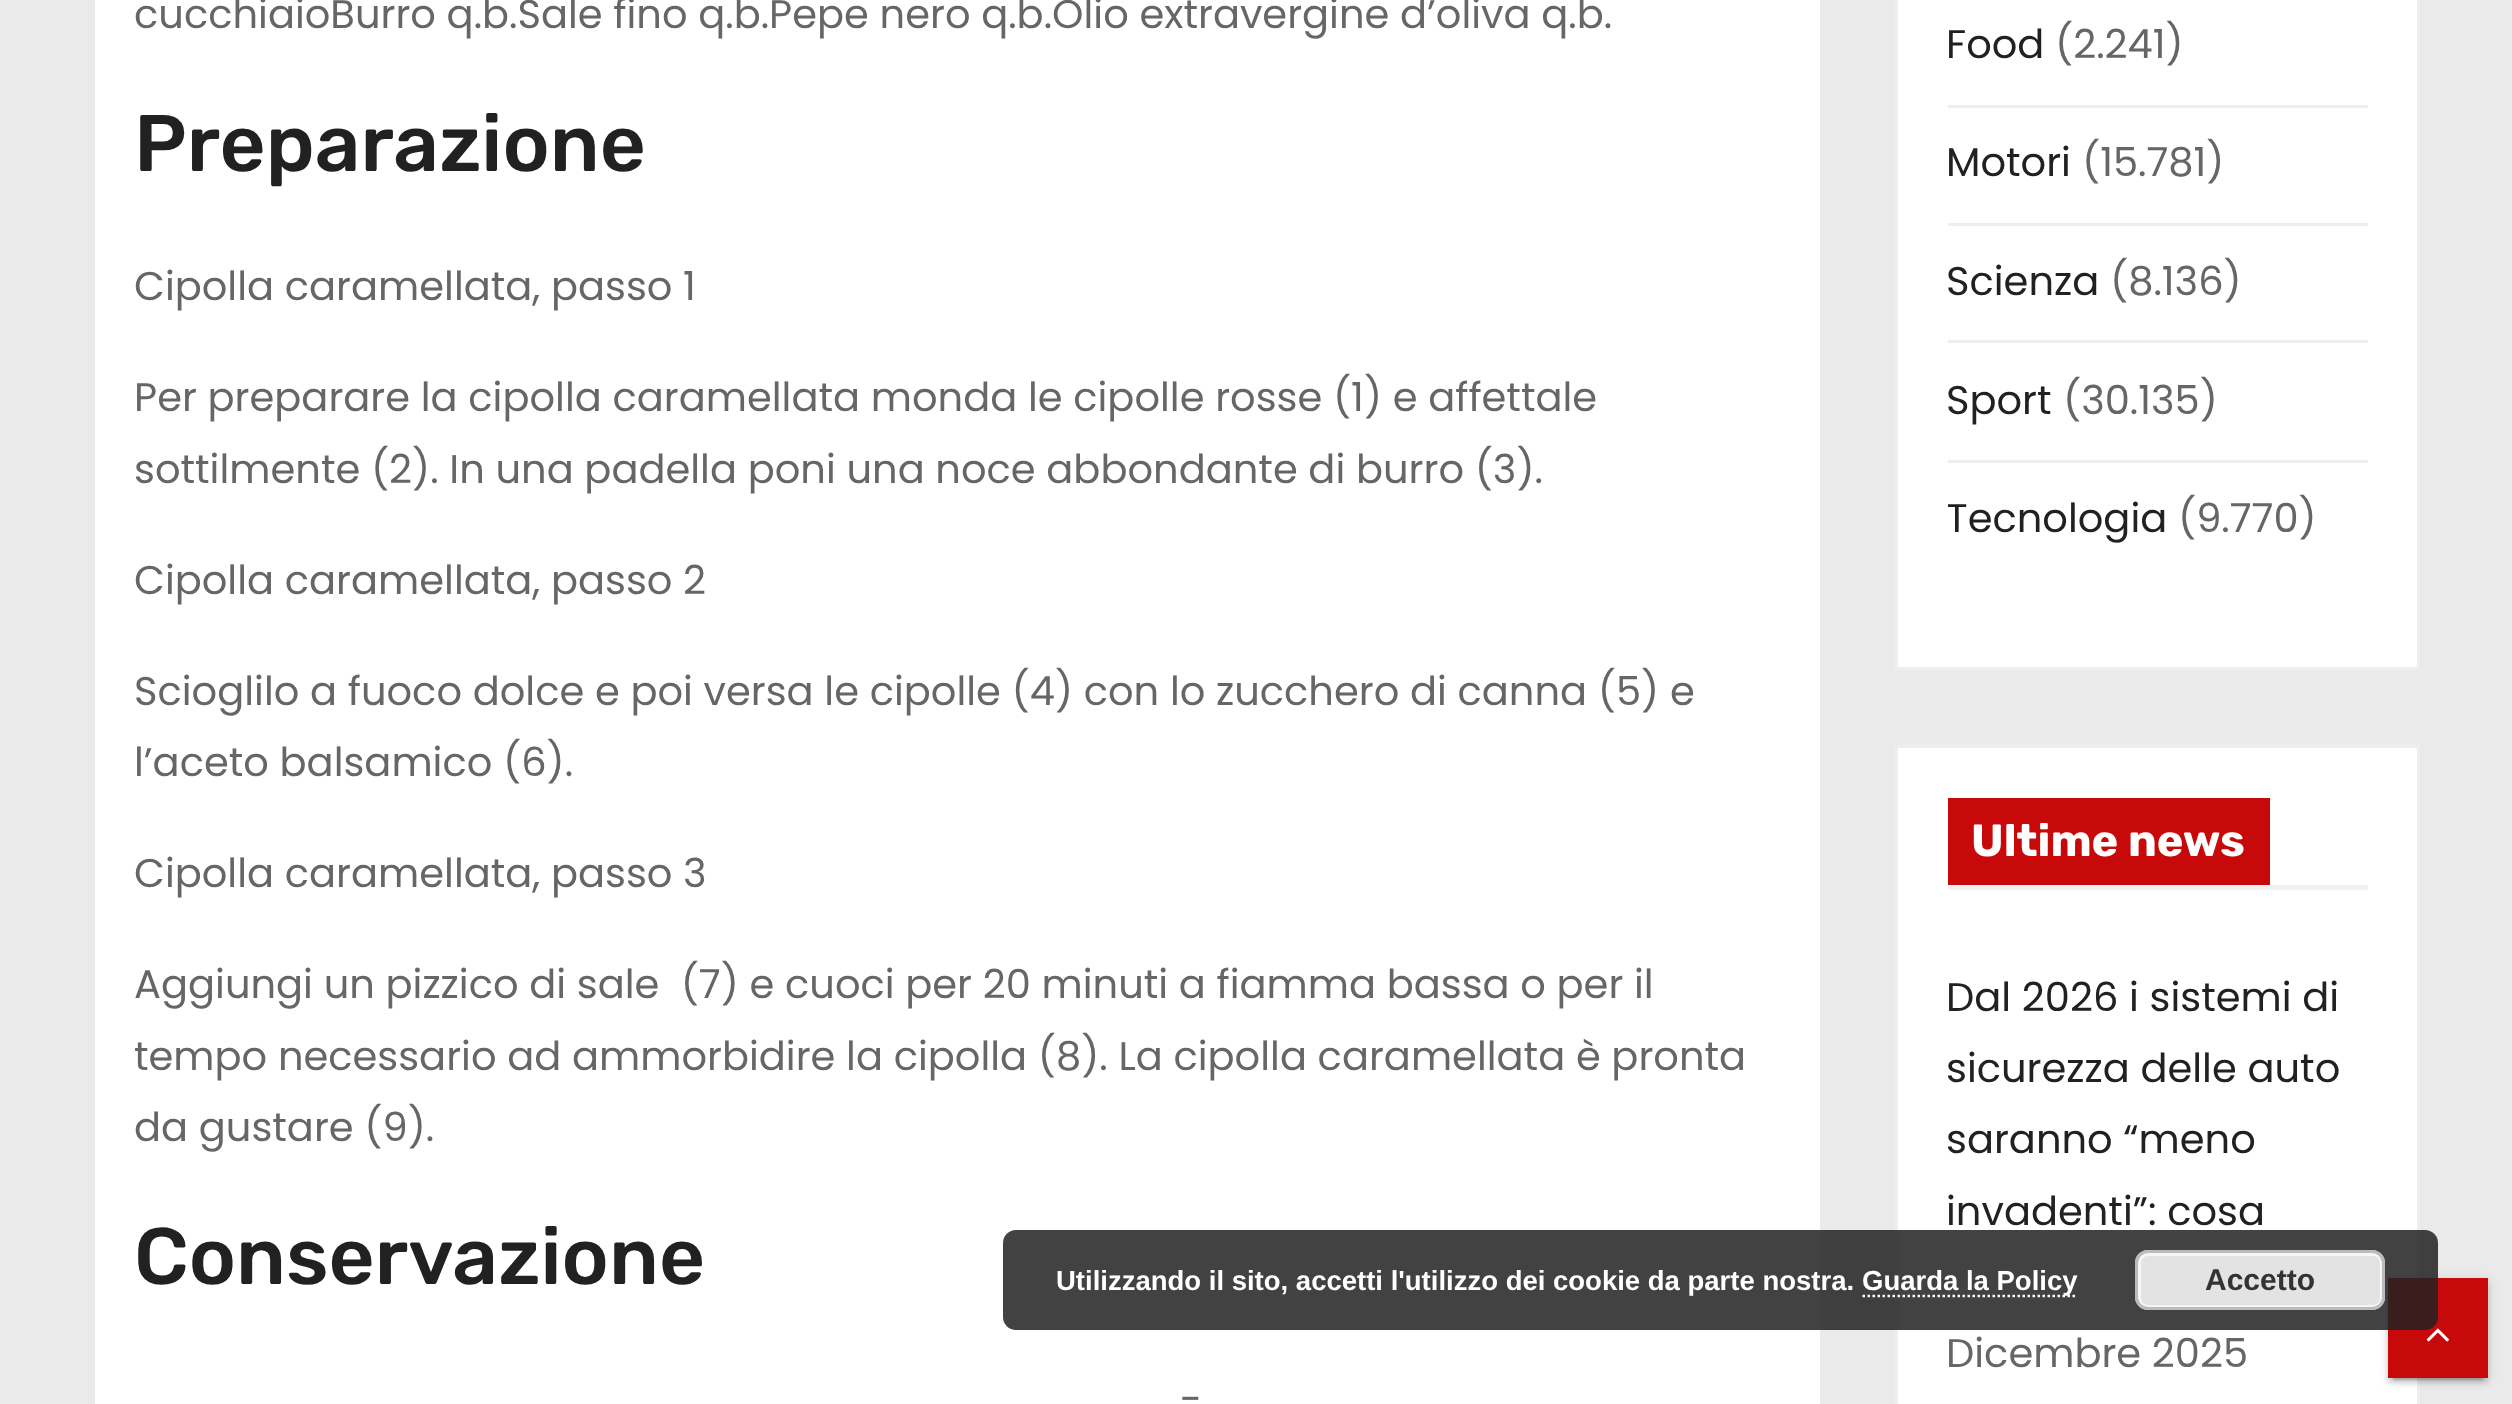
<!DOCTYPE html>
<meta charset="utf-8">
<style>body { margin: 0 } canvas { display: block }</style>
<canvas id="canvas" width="2512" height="1404"></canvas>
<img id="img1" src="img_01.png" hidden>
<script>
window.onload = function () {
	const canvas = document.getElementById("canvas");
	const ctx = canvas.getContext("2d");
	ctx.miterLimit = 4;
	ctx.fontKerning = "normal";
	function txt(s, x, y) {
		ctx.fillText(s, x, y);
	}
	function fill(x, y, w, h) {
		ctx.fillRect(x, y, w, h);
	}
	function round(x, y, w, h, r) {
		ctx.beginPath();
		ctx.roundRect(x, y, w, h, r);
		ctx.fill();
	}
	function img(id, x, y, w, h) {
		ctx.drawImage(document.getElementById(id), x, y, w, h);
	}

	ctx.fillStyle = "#EAEAEA";
	fill(0, 0, 2512, 1404);
	ctx.fillStyle = "#FFFFFF";
	fill(95, 0, 1725, 1404);
	ctx.beginPath();
	ctx.rect(1896.5, -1.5, 522, 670);
	ctx.fill();
	ctx.strokeStyle = "#EEEEEE";
	ctx.lineWidth = 3;
	ctx.stroke();
	ctx.fillStyle = "#EEEEEE";
	fill(1948, 105, 420, 3);
	fill(1948, 223, 420, 3);
	fill(1948, 340, 420, 3);
	fill(1948, 460, 420, 3);
	ctx.fillStyle = "#FFFFFF";
	ctx.beginPath();
	ctx.rect(1896.5, 746.5, 522, 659);
	ctx.fill();
	ctx.stroke();
	ctx.fillStyle = "#F2F2F2";
	fill(1948, 885, 420, 5);
	ctx.fillStyle = "#C70909";
	fill(1948, 798, 322, 87);
	ctx.fillStyle = "rgba(0, 0, 0, 0.12)";
	ctx.filter = "blur(6px)";
	ctx.beginPath();
	ctx.rect(2388, 1280, 100, 100);
	ctx.fill();
	ctx.filter = "none";
	ctx.fillStyle = "rgba(0, 0, 0, 0.2)";
	ctx.filter = "blur(1px)";
	ctx.beginPath();
	ctx.rect(2393, 1290, 90, 90);
	ctx.fill();
	ctx.filter = "none";
	ctx.fillStyle = "rgba(0, 0, 0, 0.14)";
	ctx.filter = "blur(2.5px)";
	ctx.beginPath();
	ctx.rect(2388, 1283, 100, 100);
	ctx.fill();
	ctx.filter = "none";
	ctx.fillStyle = "#C70909";
	fill(2388, 1278, 100, 100);
	img("img1", 2426, 1328, 23, 14);
	ctx.fillStyle = "rgba(33, 33, 33, 0.85)";
	round(1003, 1230, 1435, 100, 13);
	ctx.beginPath();
	ctx.moveTo(1862.5, 1296);
	ctx.lineTo(2077.5, 1296);
	ctx.strokeStyle = "#FFFFFF";
	ctx.lineWidth = 2.5;
	ctx.setLineDash([2.5, 2.5]);
	ctx.stroke();
	ctx.fillStyle = "#E3E3E3";
	round(2135, 1250, 250, 60, 13);
	ctx.beginPath();
	ctx.roundRect(2139.5, 1254.5, 242, 52, 8.5);
	ctx.strokeStyle = "#F6F6F6";
	ctx.lineWidth = 3;
	ctx.setLineDash([]);
	ctx.stroke();
	ctx.beginPath();
	ctx.roundRect(2136.5, 1251.5, 247, 57, 11.5);
	ctx.strokeStyle = "#BBBBBB";
	ctx.stroke();
	ctx.font = "40px Poppins";
	ctx.fillStyle = "#666666";
	txt("cucchiaioBurro q.b.Sale fino q.b.Pepe nero q.b.Olio extravergine d’oliva q.b.", 134, 28);
	ctx.font = "500 80px Rubik";
	ctx.fillStyle = "#212121";
	txt("Preparazione", 134, 171);
	ctx.font = "40px Poppins";
	ctx.fillStyle = "#666666";
	txt("Cipolla caramellata, passo 1", 134, 300);
	txt("Per preparare la cipolla caramellata monda le cipolle rosse (1) e affettale", 134, 411);
	txt("sottilmente (2). In una padella poni una noce abbondante di burro (3).", 134, 483);
	txt("Cipolla caramellata, passo 2", 134, 594);
	txt("Scioglilo a fuoco dolce e poi versa le cipolle (4) con lo zucchero di canna (5) e", 134, 705);
	txt("l’aceto balsamico (6).", 134, 776);
	txt("Cipolla caramellata, passo 3", 134, 887);
	txt("Aggiungi un pizzico di sale  (7) e cuoci per 20 minuti a fiamma bassa o per il", 134, 998);
	txt("tempo necessario ad ammorbidire la cipolla (8). La cipolla caramellata è pronta", 134, 1070);
	txt("da gustare (9).", 134, 1141);
	ctx.font = "500 80px Rubik";
	ctx.fillStyle = "#212121";
	txt("Conservazione", 134, 1284);
	ctx.font = "40px Poppins";
	ctx.fillStyle = "#666666";
	txt("-", 1180, 1413);
	ctx.fillStyle = "#212121";
	txt("Food", 1946, 58);
	ctx.fillStyle = "#666666";
	txt("(2.241)", 2055, 58);
	ctx.fillStyle = "#212121";
	txt("Motori", 1946, 176);
	ctx.fillStyle = "#666666";
	txt("(15.781)", 2082, 176);
	ctx.fillStyle = "#212121";
	txt("Scienza", 1946, 295);
	ctx.fillStyle = "#666666";
	txt("(8.136)", 2110, 295);
	ctx.fillStyle = "#212121";
	txt("Sport", 1946, 414);
	ctx.fillStyle = "#666666";
	txt("(30.135)", 2063, 414);
	ctx.save();
	ctx.beginPath();
	ctx.rect(1948, 463, 420, 115);
	ctx.clip();
	ctx.fillStyle = "#212121";
	txt("Tecnologia", 1946, 532);
	ctx.restore();
	txt("(9.770)", 2178, 532);
	ctx.font = "bold 45px Rubik";
	ctx.fillStyle = "#FFFFFF";
	txt("Ultime news", 1971, 856);
	ctx.font = "40px Poppins";
	ctx.fillStyle = "#212121";
	txt("Dal 2026 i sistemi di", 1946, 1011);
	txt("sicurezza delle auto", 1946, 1082);
	txt("saranno “meno", 1946, 1153);
	txt("invadenti”: cosa", 1946, 1225);
	ctx.fillStyle = "#666666";
	txt("Dicembre 2025", 1946, 1367);
	ctx.font = "bold 27.5px Liberation Sans";
	ctx.fillStyle = "#FFFFFF";
	txt("Utilizzando il sito, accetti l'utilizzo dei cookie da parte nostra.", 1056, 1290);
	txt("Guarda la Policy", 1862, 1290);
	ctx.font = "bold 30px Liberation Sans";
	ctx.fillStyle = "#333333";
	txt("Accetto", 2205, 1290);
};
</script>
